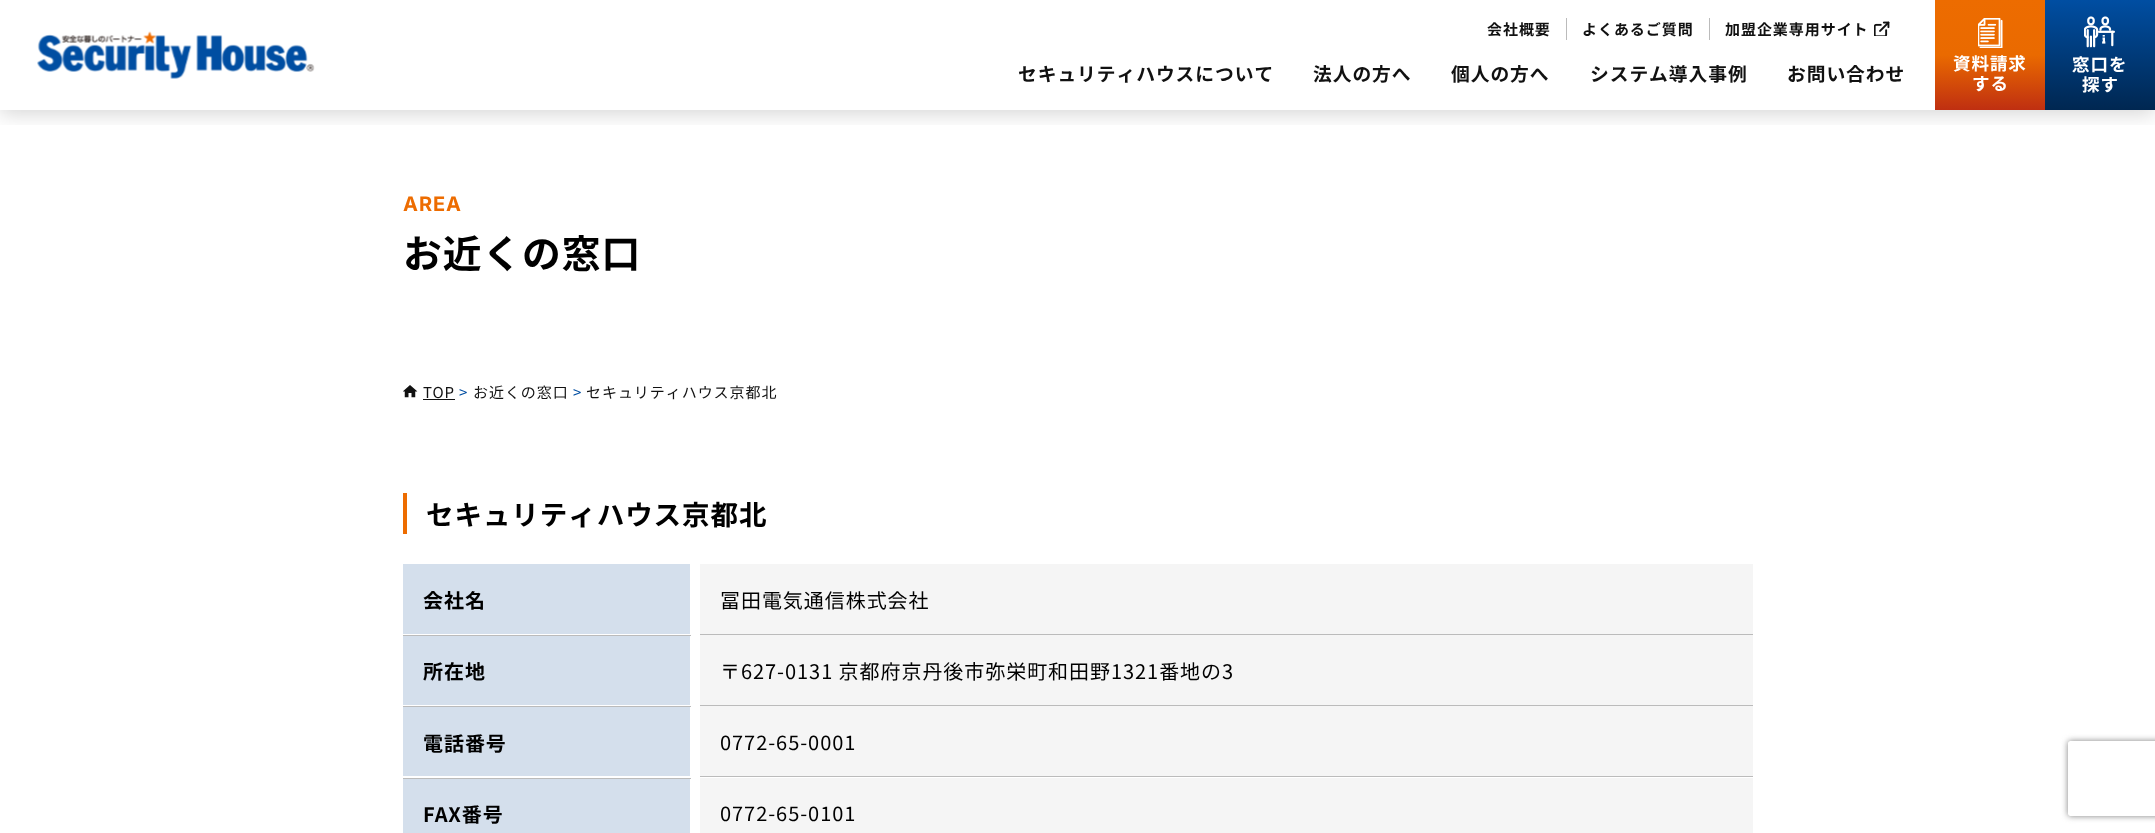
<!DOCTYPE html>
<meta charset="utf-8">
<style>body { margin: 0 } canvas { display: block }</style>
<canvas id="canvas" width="2155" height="833"></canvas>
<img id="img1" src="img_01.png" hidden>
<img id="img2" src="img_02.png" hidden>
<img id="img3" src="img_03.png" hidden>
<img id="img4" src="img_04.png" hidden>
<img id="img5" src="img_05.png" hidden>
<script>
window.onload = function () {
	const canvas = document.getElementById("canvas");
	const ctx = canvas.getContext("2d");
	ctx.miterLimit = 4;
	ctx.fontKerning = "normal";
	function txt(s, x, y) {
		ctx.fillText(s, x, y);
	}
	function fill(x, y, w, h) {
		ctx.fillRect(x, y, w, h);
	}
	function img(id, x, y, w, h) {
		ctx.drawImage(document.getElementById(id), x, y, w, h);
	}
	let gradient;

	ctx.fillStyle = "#FFFFFF";
	fill(0, 0, 2155, 833);
	ctx.save();
	ctx.beginPath();
	ctx.rect(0, 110, 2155, 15);
	ctx.clip();
	ctx.fillStyle = "rgba(0, 0, 0, 0.16)";
	ctx.filter = "blur(10px)";
	ctx.beginPath();
	ctx.rect(0, 4, 2155, 110);
	ctx.fill();
	ctx.filter = "none";
	ctx.restore();
	img("img1", 37, 31, 278, 48);
	ctx.fillStyle = "#BBBBBB";
	fill(1566, 18, 1, 22);
	fill(1709, 18, 1, 22);
	img("img2", 1874, 21, 16, 15);
	gradient = ctx.createLinearGradient(1990, 0, 1990, 110);
	gradient.addColorStop(0, "#ED6C00");
	gradient.addColorStop(0.5, "#EA6A00");
	gradient.addColorStop(1, "#BF2F11");
	ctx.fillStyle = gradient;
	fill(1935, 0, 110, 110);
	img("img3", 1978, 18, 25, 30);
	gradient = ctx.createLinearGradient(2100, 0, 2100, 110);
	gradient.addColorStop(0, "#004EA2");
	gradient.addColorStop(1, "#002751");
	ctx.fillStyle = gradient;
	fill(2045, 0, 110, 110);
	img("img4", 2084, 16, 31, 32);
	img("img5", 403, 385, 15, 13);
	ctx.fillStyle = "#111111";
	fill(423, 399, 32, 1);
	ctx.fillStyle = "#ED6C00";
	fill(403, 493, 4, 41);
	ctx.fillStyle = "#D4DFEC";
	fill(403, 564, 287, 70);
	ctx.fillStyle = "#BBBBBB";
	fill(403, 635, 288, 1);
	ctx.fillStyle = "#F5F5F5";
	fill(700, 564, 1053, 70);
	ctx.fillStyle = "#BBBBBB";
	fill(700, 634, 1053, 1);
	ctx.fillStyle = "#D4DFEC";
	fill(403, 636, 287, 69);
	ctx.fillStyle = "#BBBBBB";
	fill(403, 706, 288, 1);
	ctx.fillStyle = "#F5F5F5";
	fill(700, 635, 1053, 70);
	ctx.fillStyle = "#BBBBBB";
	fill(700, 705, 1053, 1);
	ctx.fillStyle = "#D4DFEC";
	fill(403, 707, 287, 69);
	ctx.fillStyle = "#BBBBBB";
	fill(403, 778, 288, 1);
	ctx.fillStyle = "#F5F5F5";
	fill(700, 706, 1053, 70);
	ctx.fillStyle = "#BBBBBB";
	fill(700, 776, 1053, 1);
	ctx.fillStyle = "#D4DFEC";
	fill(403, 779, 287, 54);
	ctx.fillStyle = "#F5F5F5";
	fill(700, 778, 1053, 55);
	ctx.save();
	ctx.beginPath();
	ctx.moveTo(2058, 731);
	ctx.lineTo(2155, 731);
	ctx.lineTo(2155, 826);
	ctx.lineTo(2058, 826);
	ctx.closePath();
	ctx.moveTo(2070.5, 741);
	ctx.lineTo(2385.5, 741);
	ctx.bezierCurveTo(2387, 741, 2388, 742, 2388, 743.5);
	ctx.lineTo(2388, 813.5);
	ctx.bezierCurveTo(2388, 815, 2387, 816, 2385.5, 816);
	ctx.lineTo(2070.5, 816);
	ctx.bezierCurveTo(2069, 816, 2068, 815, 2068, 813.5);
	ctx.lineTo(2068, 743.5);
	ctx.bezierCurveTo(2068, 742, 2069, 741, 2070.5, 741);
	ctx.closePath();
	ctx.clip("evenodd");
	ctx.fillStyle = "#808080";
	ctx.filter = "blur(3px)";
	ctx.beginPath();
	ctx.roundRect(2068, 741, 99, 75, 2.5);
	ctx.fill();
	ctx.filter = "none";
	ctx.restore();
	ctx.letterSpacing = "0.95px";
	ctx.font = "bold 15px Noto Sans JP";
	ctx.fillStyle = "#111111";
	txt("会社概要", 1487, 35);
	txt("よくあるご質問", 1582, 35);
	txt("加盟企業専用サイト", 1725, 35);
	ctx.font = "bold 18.75px Noto Sans JP";
	txt("セキュリティハウスについて", 1018, 81);
	txt("法人の方へ", 1313, 81);
	txt("個人の方へ", 1451, 81);
	txt("システム導入事例", 1590, 81);
	txt("お問い合わせ", 1787, 81);
	ctx.font = "bold 17.5px Noto Sans JP";
	ctx.fillStyle = "#FFFFFF";
	txt("資料請求", 1953, 70);
	txt("する", 1972, 90);
	txt("窓口を", 2072, 71);
	txt("探す", 2082, 91);
	ctx.font = "bold 20px Inter";
	ctx.fillStyle = "#ED6C00";
	txt("AREA", 403, 211);
	ctx.font = "bold 38.75px Noto Sans JP";
	ctx.fillStyle = "#000000";
	txt("お近くの窓口", 403, 268);
	ctx.font = "15px Noto Sans JP";
	ctx.fillStyle = "#111111";
	txt("TOP", 423, 398);
	ctx.fillStyle = "#004EA2";
	txt(">", 459, 398);
	ctx.fillStyle = "#111111";
	txt("お近くの窓口", 473, 398);
	ctx.fillStyle = "#004EA2";
	txt(">", 573, 398);
	ctx.fillStyle = "#111111";
	txt("セキュリティハウス京都北", 586, 398);
	ctx.font = "bold 27.5px Noto Sans JP";
	ctx.fillStyle = "#000000";
	txt("セキュリティハウス京都北", 426, 525);
	ctx.font = "bold 20px Noto Sans JP";
	txt("会社名", 423, 608);
	ctx.font = "20px Noto Sans JP";
	txt("冨田電気通信株式会社", 720, 608);
	ctx.font = "bold 20px Noto Sans JP";
	txt("所在地", 423, 679);
	ctx.font = "20px Noto Sans JP";
	txt("〒627-0131 京都府京丹後市弥栄町和田野1321番地の3", 720, 679);
	ctx.font = "bold 20px Noto Sans JP";
	txt("電話番号", 423, 751);
	ctx.font = "20px Noto Sans JP";
	txt("0772-65-0001", 720, 750);
	ctx.font = "bold 20px Noto Sans JP";
	txt("FAX番号", 423, 822);
	ctx.font = "20px Noto Sans JP";
	txt("0772-65-0101", 720, 821);
};
</script>
